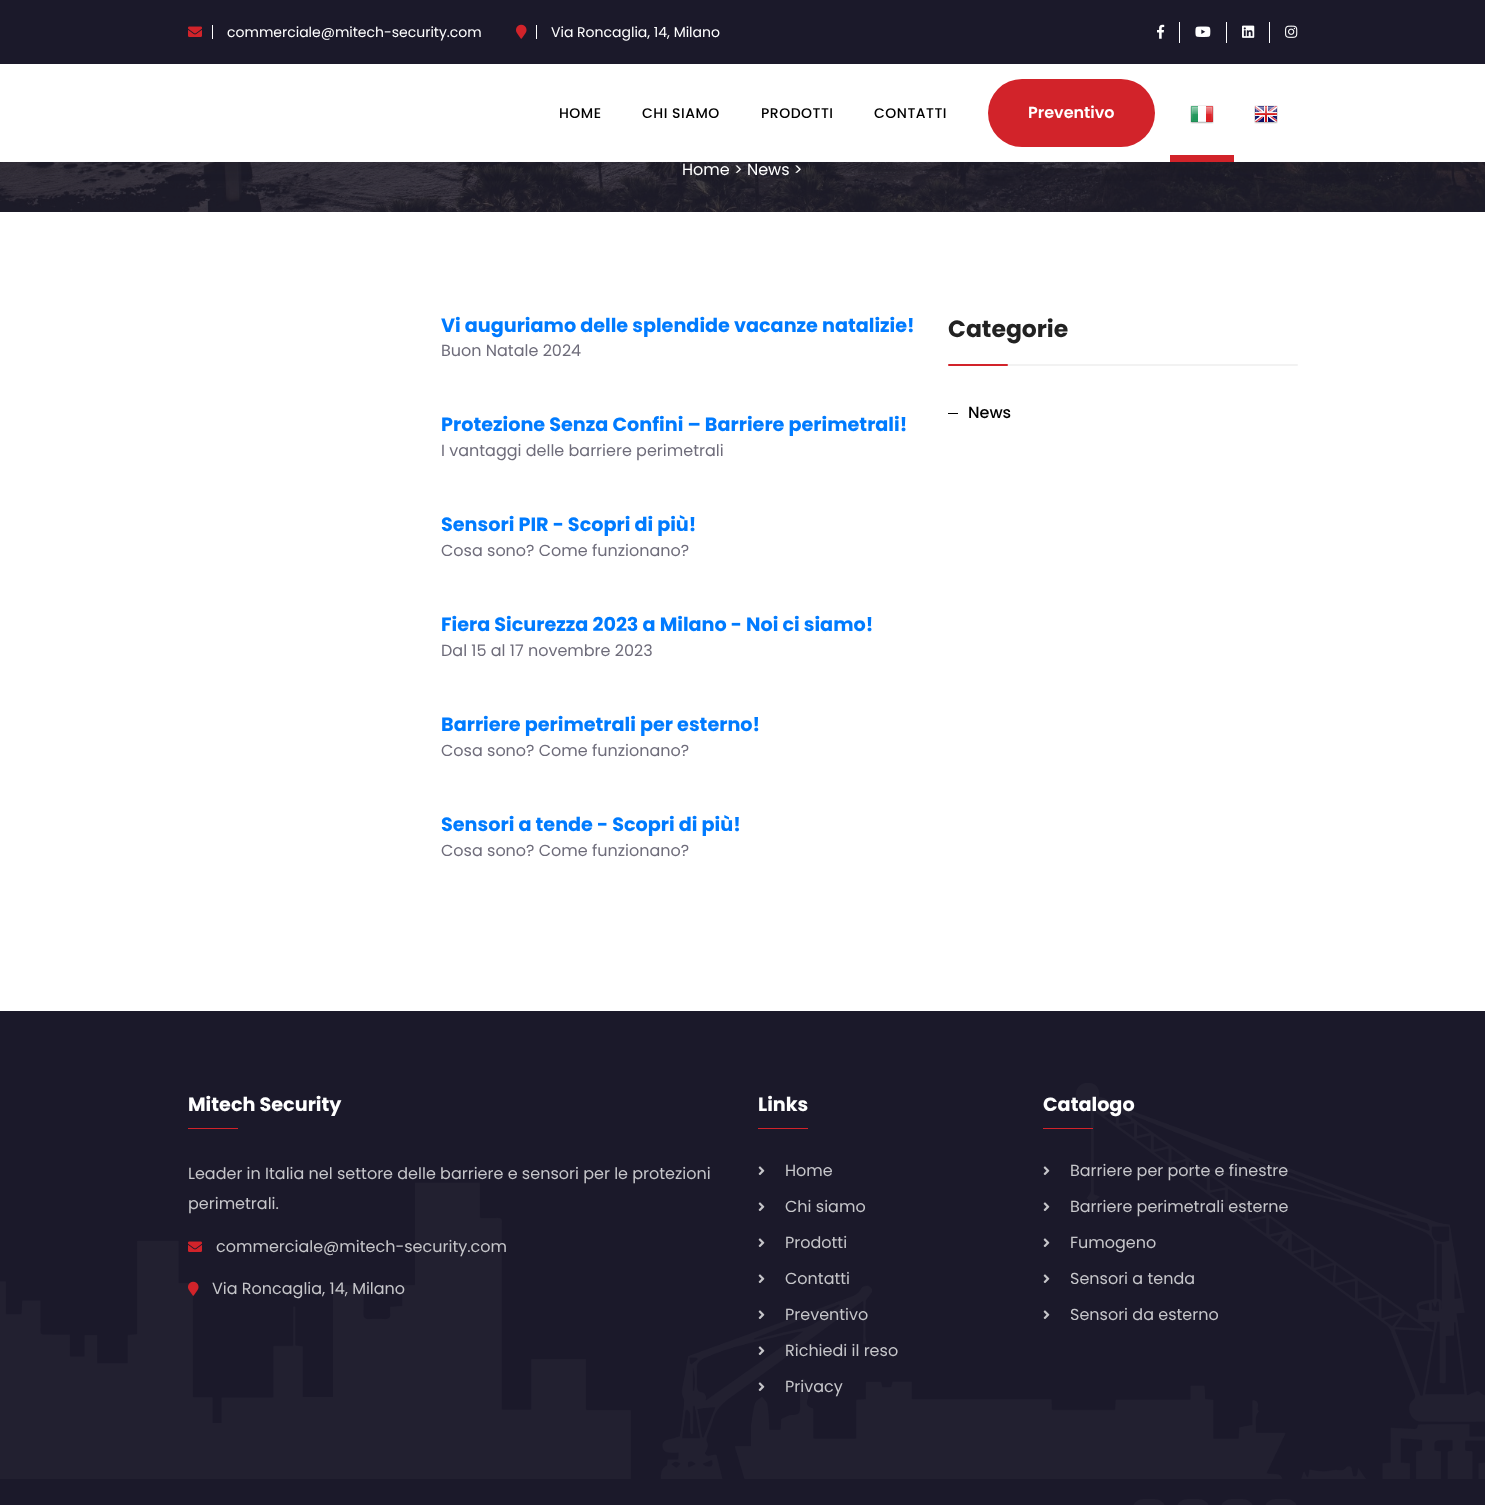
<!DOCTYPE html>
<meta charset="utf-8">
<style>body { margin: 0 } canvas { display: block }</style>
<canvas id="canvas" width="1485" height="1505"></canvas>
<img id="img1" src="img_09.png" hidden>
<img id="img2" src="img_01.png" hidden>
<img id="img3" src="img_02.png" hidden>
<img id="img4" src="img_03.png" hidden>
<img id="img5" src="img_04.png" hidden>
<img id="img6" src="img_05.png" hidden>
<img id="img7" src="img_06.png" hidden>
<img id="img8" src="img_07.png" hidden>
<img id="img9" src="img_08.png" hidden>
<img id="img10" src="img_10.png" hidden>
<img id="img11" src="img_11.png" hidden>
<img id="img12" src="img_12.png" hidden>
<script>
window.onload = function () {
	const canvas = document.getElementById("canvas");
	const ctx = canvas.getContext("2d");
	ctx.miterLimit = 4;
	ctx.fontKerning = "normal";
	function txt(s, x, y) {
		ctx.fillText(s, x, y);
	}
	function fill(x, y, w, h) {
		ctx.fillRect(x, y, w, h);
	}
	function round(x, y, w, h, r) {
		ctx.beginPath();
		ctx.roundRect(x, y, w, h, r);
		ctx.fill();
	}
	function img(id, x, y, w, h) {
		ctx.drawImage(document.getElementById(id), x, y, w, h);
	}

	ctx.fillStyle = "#FFFFFF";
	fill(0, 0, 1485, 1505);
	img("img1", 0, 162, 1485, 50);
	ctx.fillStyle = "rgba(27, 25, 42, 0.1)";
	ctx.filter = "blur(7.5px)";
	ctx.beginPath();
	ctx.rect(0, 5, 1485, 162);
	ctx.fill();
	ctx.filter = "none";
	ctx.fillStyle = "#FFFFFF";
	fill(0, 64, 1485, 98);
	ctx.fillStyle = "#1B192A";
	fill(0, 0, 1485, 64);
	ctx.fillStyle = "#FFFFFF";
	fill(212, 25, 1, 14);
	img("img2", 188, 26, 14, 11);
	fill(536, 25, 1, 14);
	img("img3", 516, 24, 11, 15);
	fill(1179, 22, 1, 21);
	img("img4", 1157, 24, 8, 15);
	fill(1226, 22, 1, 21);
	img("img5", 1195, 26, 16, 11);
	fill(1269, 22, 1, 21);
	img("img6", 1242, 25, 13, 13);
	img("img7", 1285, 25, 13, 13);
	ctx.fillStyle = "#D2232A";
	round(988, 79, 167, 68, 34);
	img("img8", 1190, 105, 24, 19);
	fill(1170, 155, 64, 7);
	img("img9", 1254, 105, 24, 19);
	ctx.fillStyle = "#F2F2F2";
	round(948, 364, 350, 2, 1);
	ctx.fillStyle = "#D2232A";
	round(948, 364, 60, 2, 1);
	ctx.fillStyle = "#000000";
	fill(948, 413, 10, 1);
	ctx.fillStyle = "#1B192A";
	fill(0, 1011, 1485, 494);
	img("img10", 0, 1083, 1485, 396);
	ctx.fillStyle = "#D2232A";
	fill(188, 1128, 50, 1);
	img("img2", 188, 1241, 14, 11);
	img("img11", 188, 1281, 11, 15);
	fill(758, 1128, 50, 1);
	img("img12", 758, 1166, 7, 9);
	img("img12", 758, 1202, 7, 9);
	img("img12", 758, 1238, 7, 9);
	img("img12", 758, 1274, 7, 9);
	img("img12", 758, 1310, 7, 9);
	img("img12", 758, 1346, 7, 9);
	img("img12", 758, 1382, 7, 9);
	fill(1043, 1128, 50, 1);
	img("img12", 1043, 1166, 7, 9);
	img("img12", 1043, 1202, 7, 9);
	img("img12", 1043, 1238, 7, 9);
	img("img12", 1043, 1274, 7, 9);
	img("img12", 1043, 1310, 7, 9);
	ctx.fillStyle = "#222030";
	round(1132, 1499, 34, 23, 17);
	round(1176, 1499, 34, 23, 17);
	round(1220, 1499, 34, 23, 17);
	round(1264, 1499, 34, 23, 17);
	ctx.font = "14px Poppins";
	ctx.fillStyle = "#FFFFFF";
	txt("commerciale@mitech-security.com", 227, 37);
	txt("Via Roncaglia, 14, Milano", 551, 37);
	ctx.letterSpacing = "0.5px";
	ctx.font = "500 14px Poppins";
	ctx.fillStyle = "#000000";
	txt("HOME", 559, 118);
	txt("CHI SIAMO", 642, 118);
	txt("PRODOTTI", 761, 118);
	txt("CONTATTI", 874, 118);
	ctx.letterSpacing = "0px";
	ctx.font = "600 16px Poppins";
	ctx.fillStyle = "#FFFFFF";
	txt("Preventivo", 1028, 118);
	ctx.font = "16px Poppins";
	txt("Home > News >", 682, 175);
	ctx.font = "bold 19.2px Poppins";
	ctx.fillStyle = "#007BFF";
	txt("Vi auguriamo delle splendide vacanze natalizie!", 441, 332);
	ctx.font = "16px Poppins";
	ctx.fillStyle = "#6E6C7A";
	txt("Buon Natale 2024", 441, 356);
	ctx.font = "bold 19.2px Poppins";
	ctx.fillStyle = "#007BFF";
	txt("Protezione Senza Confini – Barriere perimetrali!", 441, 431);
	ctx.font = "16px Poppins";
	ctx.fillStyle = "#6E6C7A";
	txt("I vantaggi delle barriere perimetrali", 441, 456);
	ctx.font = "bold 19.2px Poppins";
	ctx.fillStyle = "#007BFF";
	txt("Sensori PIR - Scopri di più!", 441, 531);
	ctx.font = "16px Poppins";
	ctx.fillStyle = "#6E6C7A";
	txt("Cosa sono? Come funzionano?", 441, 556);
	ctx.font = "bold 19.2px Poppins";
	ctx.fillStyle = "#007BFF";
	txt("Fiera Sicurezza 2023 a Milano - Noi ci siamo!", 441, 631);
	ctx.font = "16px Poppins";
	ctx.fillStyle = "#6E6C7A";
	txt("Dal 15 al 17 novembre 2023", 441, 656);
	ctx.font = "bold 19.2px Poppins";
	ctx.fillStyle = "#007BFF";
	txt("Barriere perimetrali per esterno!", 441, 731);
	ctx.font = "16px Poppins";
	ctx.fillStyle = "#6E6C7A";
	txt("Cosa sono? Come funzionano?", 441, 756);
	ctx.font = "bold 19.2px Poppins";
	ctx.fillStyle = "#007BFF";
	txt("Sensori a tende - Scopri di più!", 441, 831);
	ctx.font = "16px Poppins";
	ctx.fillStyle = "#6E6C7A";
	txt("Cosa sono? Come funzionano?", 441, 856);
	ctx.font = "bold 23.5px Poppins";
	ctx.fillStyle = "#222222";
	txt("Categorie", 948, 337);
	ctx.font = "500 16px Poppins";
	ctx.fillStyle = "#000000";
	txt("News", 968, 418);
	ctx.font = "bold 19.2px Poppins";
	ctx.fillStyle = "#FFFFFF";
	txt("Mitech Security", 188, 1111);
	ctx.font = "16px Poppins";
	ctx.fillStyle = "#C6C6CA";
	txt("Leader in Italia nel settore delle barriere e sensori per le protezioni", 188, 1179);
	txt("perimetrali.", 188, 1209);
	txt("commerciale@mitech-security.com", 216, 1252);
	txt("Via Roncaglia, 14, Milano", 212, 1294);
	ctx.font = "bold 19.2px Poppins";
	ctx.fillStyle = "#FFFFFF";
	txt("Links", 758, 1111);
	ctx.font = "16px Poppins";
	ctx.fillStyle = "#C6C6CA";
	txt("Home", 785, 1176);
	txt("Chi siamo", 785, 1212);
	txt("Prodotti", 785, 1248);
	txt("Contatti", 785, 1284);
	txt("Preventivo", 785, 1320);
	txt("Richiedi il reso", 785, 1356);
	txt("Privacy", 785, 1392);
	ctx.font = "bold 19.2px Poppins";
	ctx.fillStyle = "#FFFFFF";
	txt("Catalogo", 1043, 1111);
	ctx.font = "16px Poppins";
	ctx.fillStyle = "#C6C6CA";
	txt("Barriere per porte e finestre", 1070, 1176);
	txt("Barriere perimetrali esterne", 1070, 1212);
	txt("Fumogeno", 1070, 1248);
	txt("Sensori a tenda", 1070, 1284);
	txt("Sensori da esterno", 1070, 1320);
};
</script>
